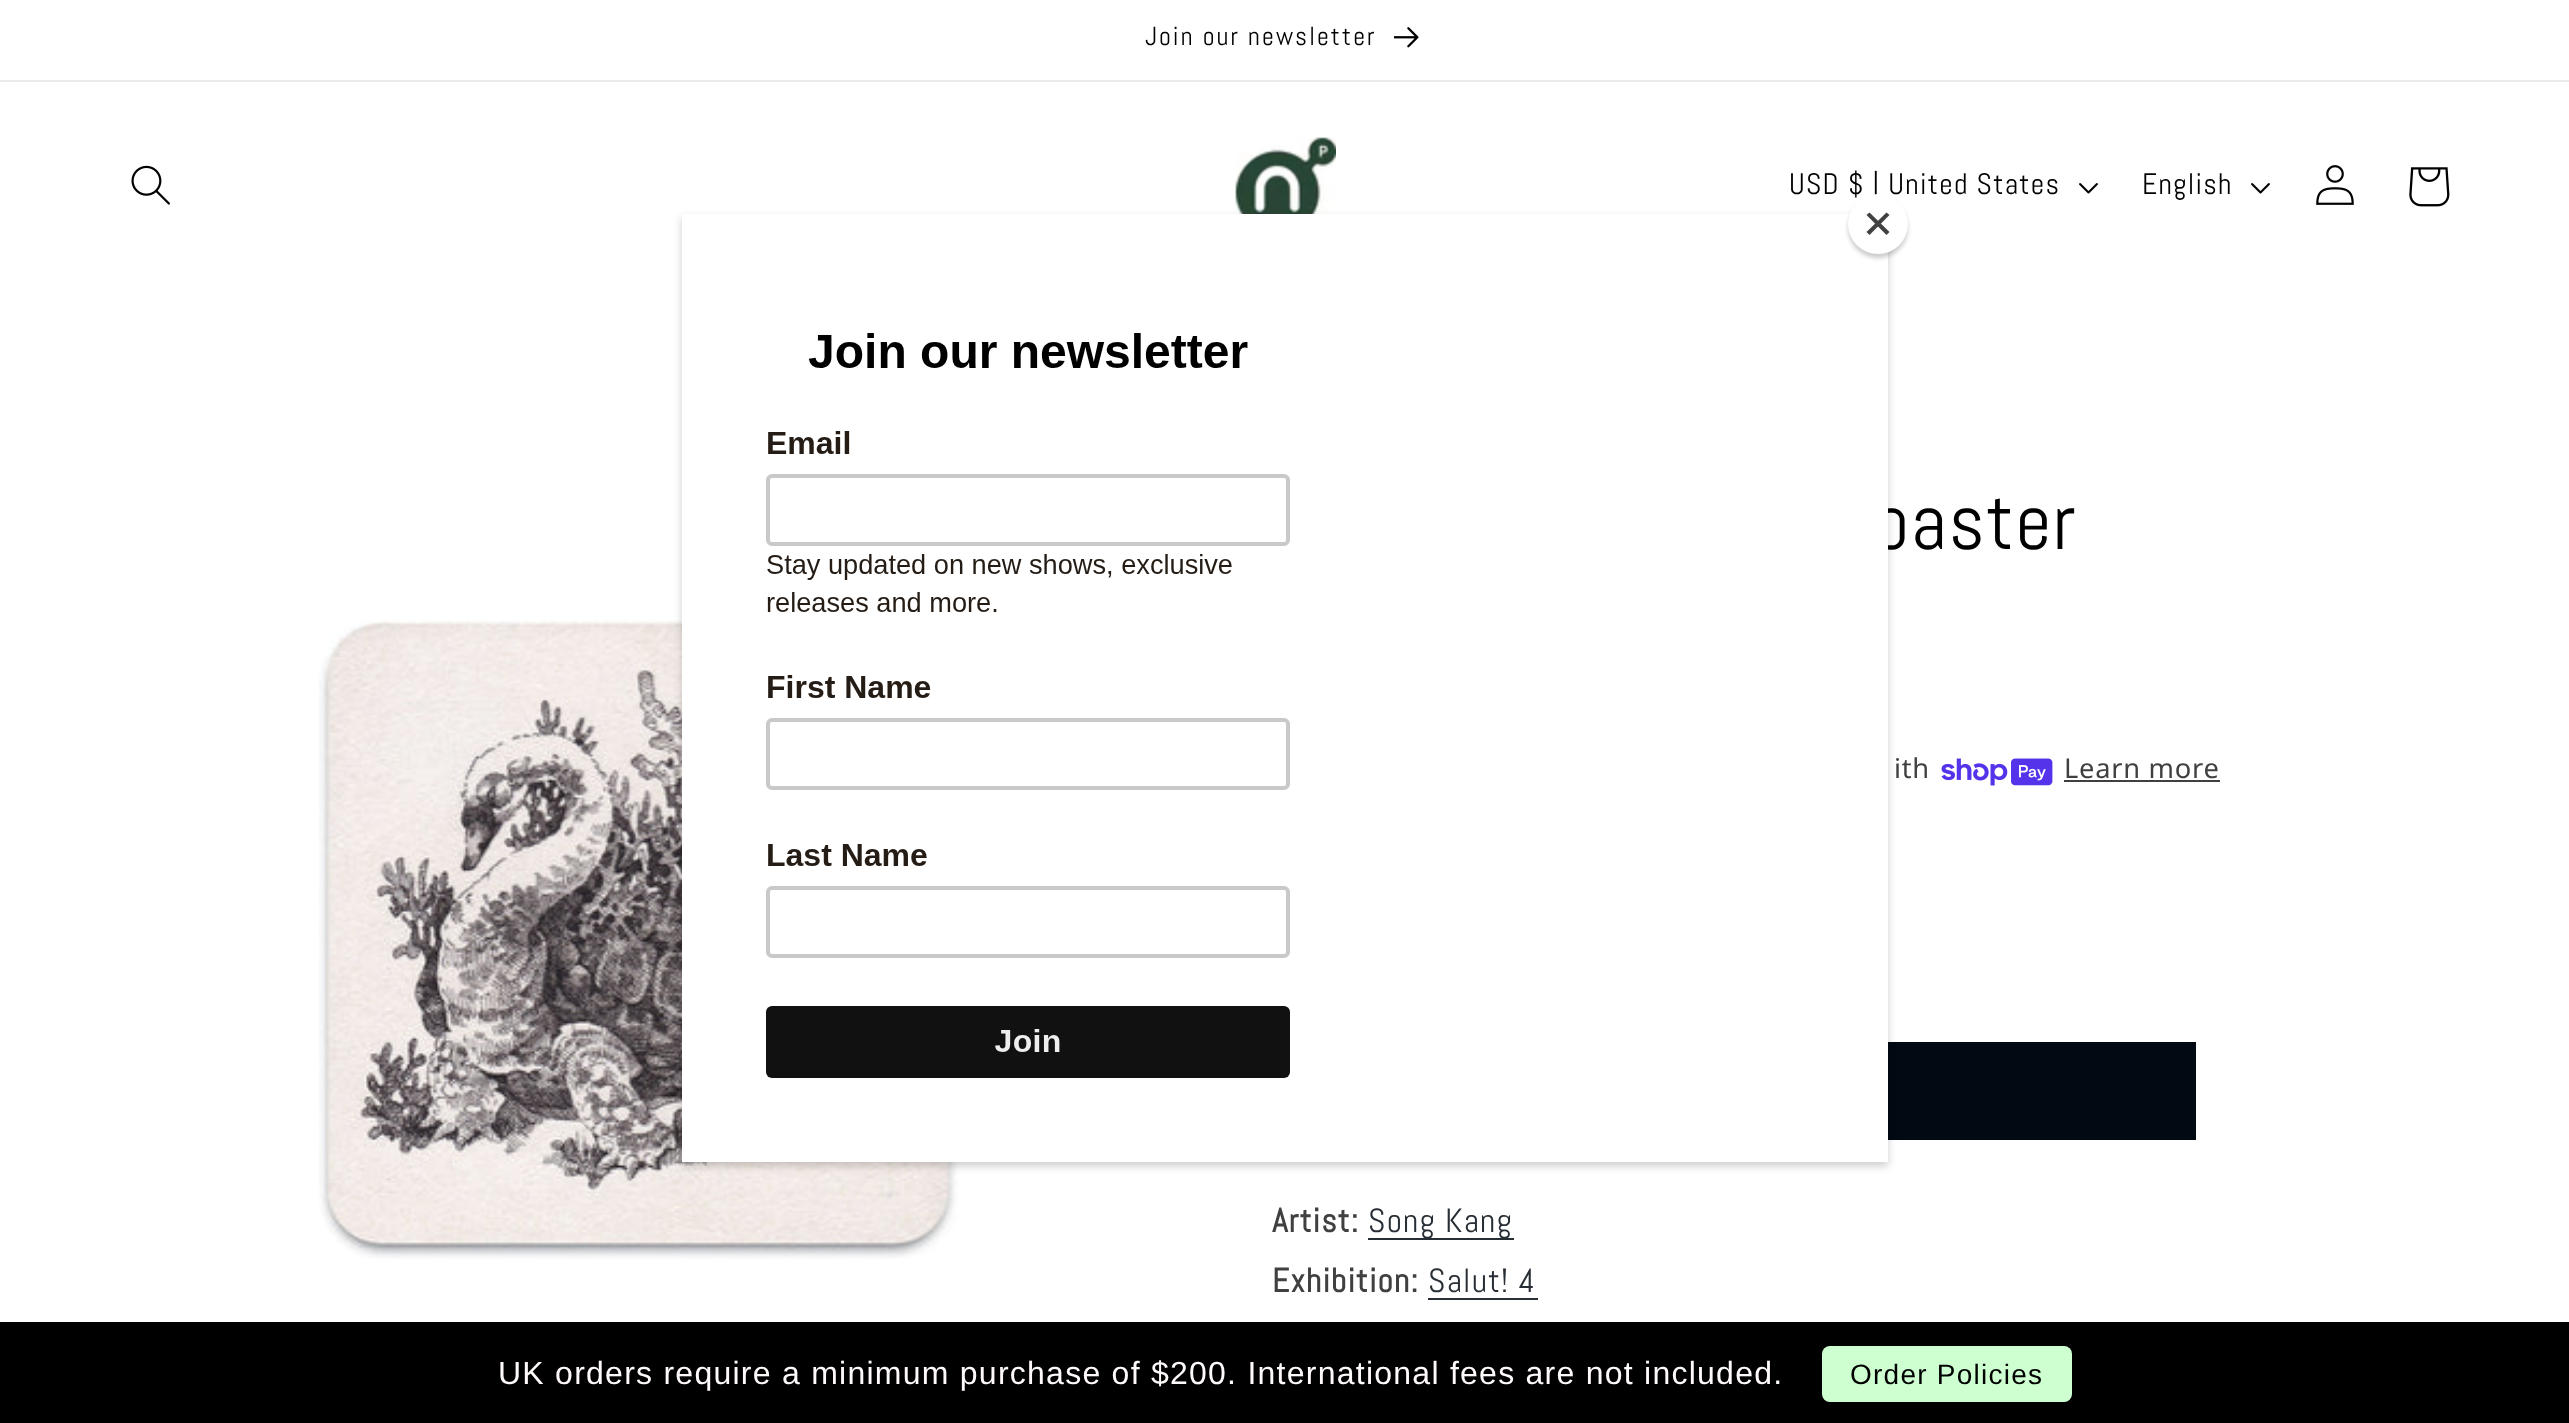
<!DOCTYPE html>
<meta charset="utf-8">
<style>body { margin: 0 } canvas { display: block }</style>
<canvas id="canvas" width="2569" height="1423"></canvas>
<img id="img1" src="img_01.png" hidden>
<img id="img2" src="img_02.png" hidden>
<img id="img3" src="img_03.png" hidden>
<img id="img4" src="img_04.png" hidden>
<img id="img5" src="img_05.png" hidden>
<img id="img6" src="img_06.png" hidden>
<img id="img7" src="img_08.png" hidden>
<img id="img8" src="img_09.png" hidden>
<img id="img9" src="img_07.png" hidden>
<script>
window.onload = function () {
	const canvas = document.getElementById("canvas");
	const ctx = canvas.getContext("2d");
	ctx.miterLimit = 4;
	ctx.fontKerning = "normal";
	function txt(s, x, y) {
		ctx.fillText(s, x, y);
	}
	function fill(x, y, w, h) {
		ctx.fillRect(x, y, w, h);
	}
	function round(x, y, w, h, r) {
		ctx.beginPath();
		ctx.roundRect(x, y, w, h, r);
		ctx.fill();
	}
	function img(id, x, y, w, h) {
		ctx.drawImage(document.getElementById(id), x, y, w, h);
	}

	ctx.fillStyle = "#FFFFFF";
	fill(0, 0, 2569, 1423);
	ctx.fillStyle = "#EBEBEB";
	fill(0, 80, 2569, 2);
	img("img1", 1394, 27, 25, 21);
	img("img2", 131, 165, 39, 40);
	img("img3", 1235, 137, 101, 77);
	img("img4", 2079, 183, 19, 11);
	img("img4", 2251, 183, 19, 11);
	img("img5", 2316, 165, 38, 40);
	img("img6", 2409, 167, 41, 40);
	img("img7", 318, 620, 640, 639);
	ctx.fillStyle = "#020912";
	fill(1888, 1042, 308, 98);
	ctx.fillStyle = "rgba(0, 0, 0, 0.2)";
	ctx.filter = "blur(4px)";
	ctx.beginPath();
	ctx.rect(682, 218, 1206, 948);
	ctx.fill();
	ctx.filter = "none";
	img("img8", 1941, 758, 112, 28);
	ctx.fillStyle = "#404040";
	fill(2064, 780, 156, 2);
	ctx.fillStyle = "#282E36";
	fill(1368, 1238, 146, 2);
	fill(1428, 1298, 110, 2);
	ctx.fillStyle = "#000000";
	fill(0, 1322, 2569, 101);
	ctx.fillStyle = "#CEFFD1";
	round(1822, 1346, 250, 56, 8);
	ctx.letterSpacing = "2.1px";
	ctx.font = "26px Abel";
	ctx.fillStyle = "#000000";
	txt("Join our newsletter", 1145, 45);
	ctx.letterSpacing = "1.25px";
	ctx.font = "29.5px Abel";
	txt("USD $ | United States", 1789, 194);
	txt("English", 2142, 194);
	ctx.font = "80px Abel";
	txt("oaster", 1873, 549);
	img("img9", 682, 214, 1206, 948);
	ctx.fillStyle = "rgba(0, 0, 0, 0.2)";
	ctx.filter = "blur(2px)";
	ctx.beginPath();
	ctx.roundRect(1848, 198, 60, 60, 30);
	ctx.fill();
	ctx.filter = "none";
	ctx.fillStyle = "#FFFFFF";
	ctx.beginPath();
	ctx.arc(1878, 224, 30, 0, Math.PI * 2);
	ctx.fill();
	ctx.fillStyle = "#414141";
	ctx.beginPath();
	ctx.moveTo(1886.5, 212.5);
	ctx.lineTo(1889.5, 215);
	ctx.lineTo(1869.5, 235);
	ctx.lineTo(1866.5, 232);
	ctx.closePath();
	ctx.fill();
	ctx.beginPath();
	ctx.moveTo(1866.5, 215);
	ctx.lineTo(1869.5, 212.5);
	ctx.lineTo(1889.5, 232);
	ctx.lineTo(1886.5, 235);
	ctx.closePath();
	ctx.fill();
	ctx.letterSpacing = "0.75px";
	ctx.font = "27.25px Noto Sans";
	ctx.fillStyle = "#404040";
	txt("ith", 1894, 778);
	txt("Learn more", 2064, 778);
	ctx.letterSpacing = "1.25px";
	ctx.font = "bold 33.5px Abel";
	txt("Artist:", 1272, 1232);
	ctx.font = "33.5px Abel";
	ctx.fillStyle = "#282E35";
	txt("Song Kang", 1368, 1232);
	ctx.font = "bold 33.5px Abel";
	ctx.fillStyle = "#404040";
	txt("Exhibition:", 1272, 1292);
	ctx.font = "33.5px Abel";
	ctx.fillStyle = "#282E35";
	txt("Salut! 4", 1428, 1292);
	ctx.font = "32px Liberation Sans";
	ctx.fillStyle = "#FFFAFA";
	txt("UK orders require a minimum purchase of $200. International fees are not included.", 498, 1384);
	ctx.font = "28px Liberation Sans";
	ctx.fillStyle = "#000000";
	txt("Order Policies", 1850, 1384);
};
</script>
